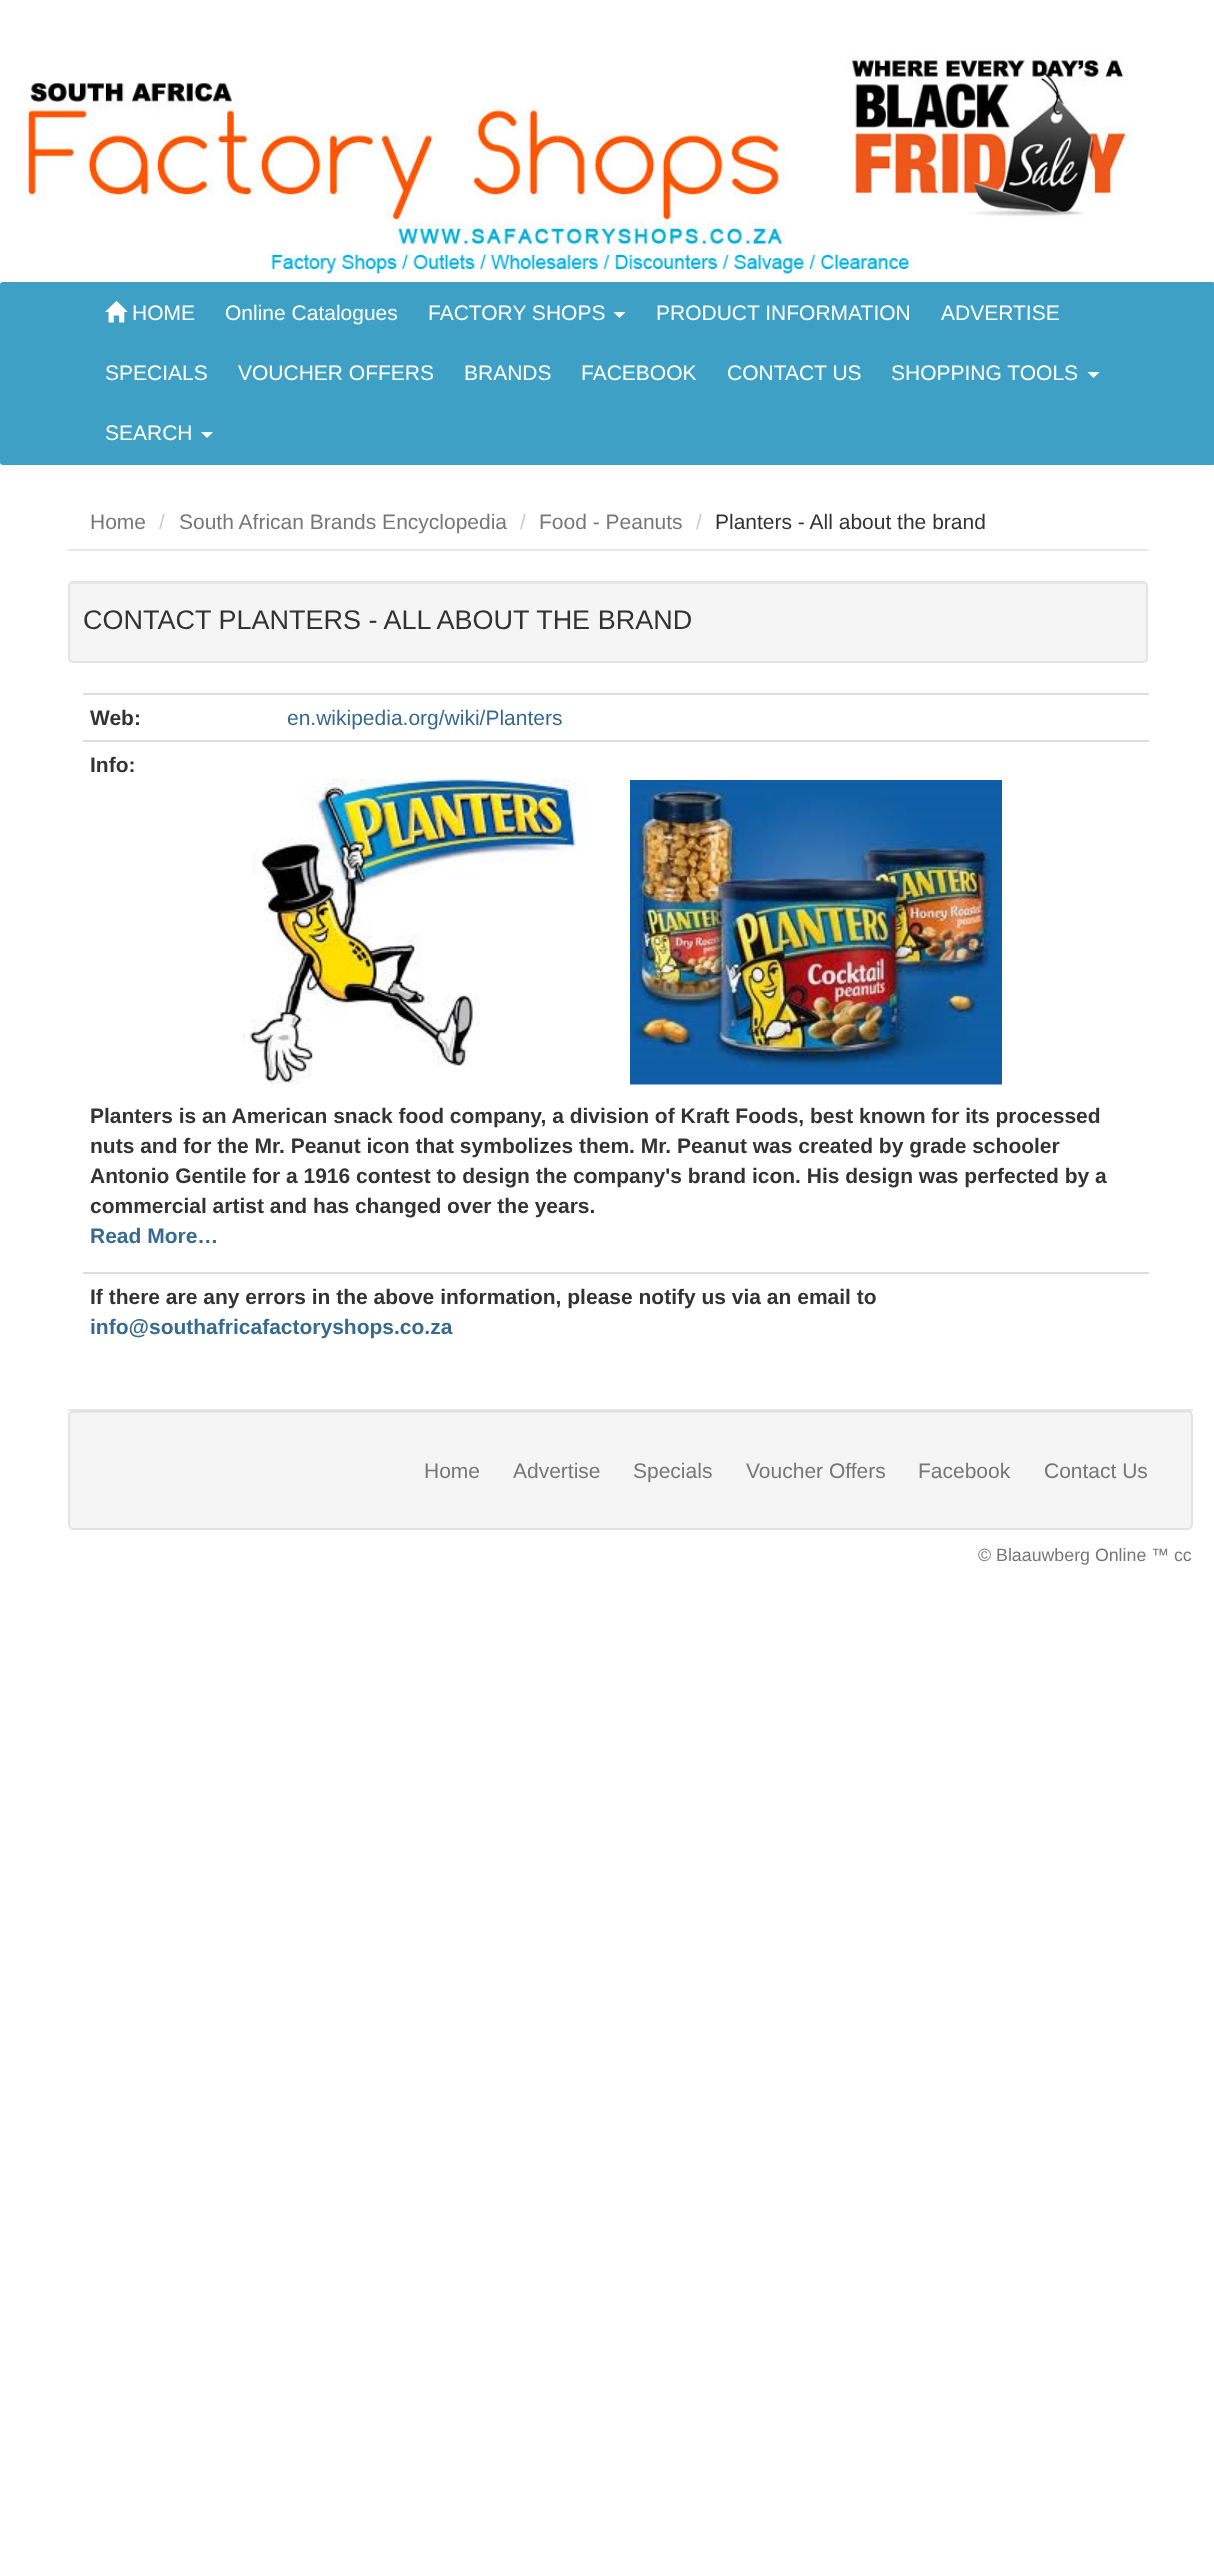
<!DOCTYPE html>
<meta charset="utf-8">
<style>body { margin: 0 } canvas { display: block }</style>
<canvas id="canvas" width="1214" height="2563"></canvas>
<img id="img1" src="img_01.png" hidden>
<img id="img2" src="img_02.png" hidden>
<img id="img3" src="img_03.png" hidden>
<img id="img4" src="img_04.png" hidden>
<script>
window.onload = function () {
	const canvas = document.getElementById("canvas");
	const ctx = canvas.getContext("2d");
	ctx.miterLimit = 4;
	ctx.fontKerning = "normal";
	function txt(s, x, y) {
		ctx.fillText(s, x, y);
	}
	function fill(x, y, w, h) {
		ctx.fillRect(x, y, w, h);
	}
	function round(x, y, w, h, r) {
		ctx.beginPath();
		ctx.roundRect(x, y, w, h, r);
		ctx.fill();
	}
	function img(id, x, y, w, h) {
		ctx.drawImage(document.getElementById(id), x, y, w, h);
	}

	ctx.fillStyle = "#FFFFFF";
	fill(0, 0, 1214, 2563);
	img("img1", 22, 54, 1110, 226);
	ctx.fillStyle = "#3EA0C4";
	round(0, 282, 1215, 183, 3);
	img("img2", 105, 301, 23, 22);
	ctx.fillStyle = "#FFFFFF";
	ctx.beginPath();
	ctx.moveTo(613.5, 312);
	ctx.lineTo(625.5, 312);
	ctx.lineTo(619.5, 318);
	ctx.closePath();
	ctx.fill();
	ctx.beginPath();
	ctx.moveTo(1087.5, 372);
	ctx.lineTo(1099.5, 372);
	ctx.lineTo(1093.5, 378);
	ctx.closePath();
	ctx.fill();
	ctx.beginPath();
	ctx.moveTo(201, 432);
	ctx.lineTo(213, 432);
	ctx.lineTo(207, 438);
	ctx.closePath();
	ctx.fill();
	ctx.fillStyle = "#E7E7E7";
	fill(68, 549, 1080, 2);
	ctx.fillStyle = "#F5F5F5";
	round(68, 581, 1080, 82, 5);
	ctx.fillStyle = "#E9E9E9";
	ctx.beginPath();
	ctx.moveTo(72, 584);
	ctx.lineTo(1143, 584);
	ctx.bezierCurveTo(1145, 584, 1146, 585, 1146, 586);
	ctx.lineTo(1146, 585);
	ctx.bezierCurveTo(1146, 583, 1145, 582, 1143, 582);
	ctx.lineTo(72, 582);
	ctx.bezierCurveTo(70, 582, 69, 583, 69, 585);
	ctx.lineTo(69, 586);
	ctx.bezierCurveTo(69, 585, 70, 584, 72, 584);
	ctx.closePath();
	ctx.fill();
	ctx.beginPath();
	ctx.roundRect(69, 582, 1078, 80, 4);
	ctx.strokeStyle = "#E3E3E3";
	ctx.lineWidth = 2;
	ctx.stroke();
	ctx.fillStyle = "#DDDDDD";
	fill(83, 693, 1066, 2);
	fill(83, 740, 1066, 2);
	img("img3", 242, 778, 346, 307);
	img("img4", 630, 780, 372, 305);
	fill(83, 1272, 1066, 2);
	ctx.fillStyle = "#E7E7E7";
	fill(68, 1409, 1125, 2);
	ctx.fillStyle = "#F5F5F5";
	round(68, 1410, 1125, 120, 6);
	ctx.fillStyle = "#E9E9E9";
	ctx.beginPath();
	ctx.moveTo(74, 1413);
	ctx.lineTo(1186, 1413);
	ctx.bezierCurveTo(1189, 1413, 1191, 1415, 1191, 1418);
	ctx.bezierCurveTo(1191, 1415, 1189, 1412, 1186, 1412);
	ctx.lineTo(74, 1412);
	ctx.bezierCurveTo(71, 1412, 69, 1415, 69, 1418);
	ctx.bezierCurveTo(69, 1415, 71, 1413, 74, 1413);
	ctx.closePath();
	ctx.fill();
	ctx.beginPath();
	ctx.roundRect(69, 1411, 1123, 118, 5);
	ctx.stroke();
	ctx.font = "21px Liberation Sans";
	ctx.fillStyle = "#FFFFFF";
	txt("HOME", 132, 320);
	txt("Online Catalogues", 225, 320);
	txt("FACTORY SHOPS", 428, 320);
	txt("PRODUCT INFORMATION", 656, 320);
	txt("ADVERTISE", 941, 320);
	txt("SPECIALS", 105, 380);
	txt("VOUCHER OFFERS", 238, 380);
	txt("BRANDS", 464, 380);
	txt("FACEBOOK", 581, 380);
	txt("CONTACT US", 727, 380);
	txt("SHOPPING TOOLS", 891, 380);
	txt("SEARCH", 105, 440);
	ctx.fillStyle = "#777777";
	txt("Home", 90, 529);
	ctx.fillStyle = "#CCCCCC";
	txt("/", 159, 529);
	ctx.fillStyle = "#777777";
	txt("South African Brands Encyclopedia", 179, 529);
	ctx.fillStyle = "#CCCCCC";
	txt("/", 520, 529);
	ctx.fillStyle = "#777777";
	txt("Food - Peanuts", 539, 529);
	ctx.fillStyle = "#CCCCCC";
	txt("/", 696, 529);
	ctx.fillStyle = "#333333";
	txt("Planters - All about the brand", 715, 529);
	ctx.font = "27px Liberation Sans";
	txt("CONTACT PLANTERS - ALL ABOUT THE BRAND", 83, 629);
	ctx.font = "bold 21px Liberation Sans";
	txt("Web:", 90, 725);
	ctx.font = "21px Liberation Sans";
	ctx.fillStyle = "#366A8E";
	txt("en.wikipedia.org/wiki/Planters", 287, 725);
	ctx.font = "bold 21px Liberation Sans";
	ctx.fillStyle = "#333333";
	txt("Info:", 90, 772);
	txt("Planters is an American snack food company, a division of Kraft Foods, best known for its processed", 90, 1123);
	txt("nuts and for the Mr. Peanut icon that symbolizes them. Mr. Peanut was created by grade schooler", 90, 1153);
	txt("Antonio Gentile for a 1916 contest to design the company's brand icon. His design was perfected by a", 90, 1183);
	txt("commercial artist and has changed over the years.", 90, 1213);
	ctx.fillStyle = "#366A8E";
	txt("Read More…", 90, 1243);
	ctx.fillStyle = "#333333";
	txt("If there are any errors in the above information, please notify us via an email to", 90, 1304);
	ctx.fillStyle = "#366A8E";
	txt("info@southafricafactoryshops.co.za", 90, 1334);
	ctx.font = "21px Liberation Sans";
	ctx.fillStyle = "#777777";
	txt("Home", 424, 1478);
	txt("Advertise", 513, 1478);
	txt("Specials", 633, 1478);
	txt("Voucher Offers", 746, 1478);
	txt("Facebook", 918, 1478);
	txt("Contact Us", 1044, 1478);
	ctx.font = "17.8px Liberation Sans";
	txt("© Blaauwberg Online ™ cc", 978, 1561);
};
</script>
